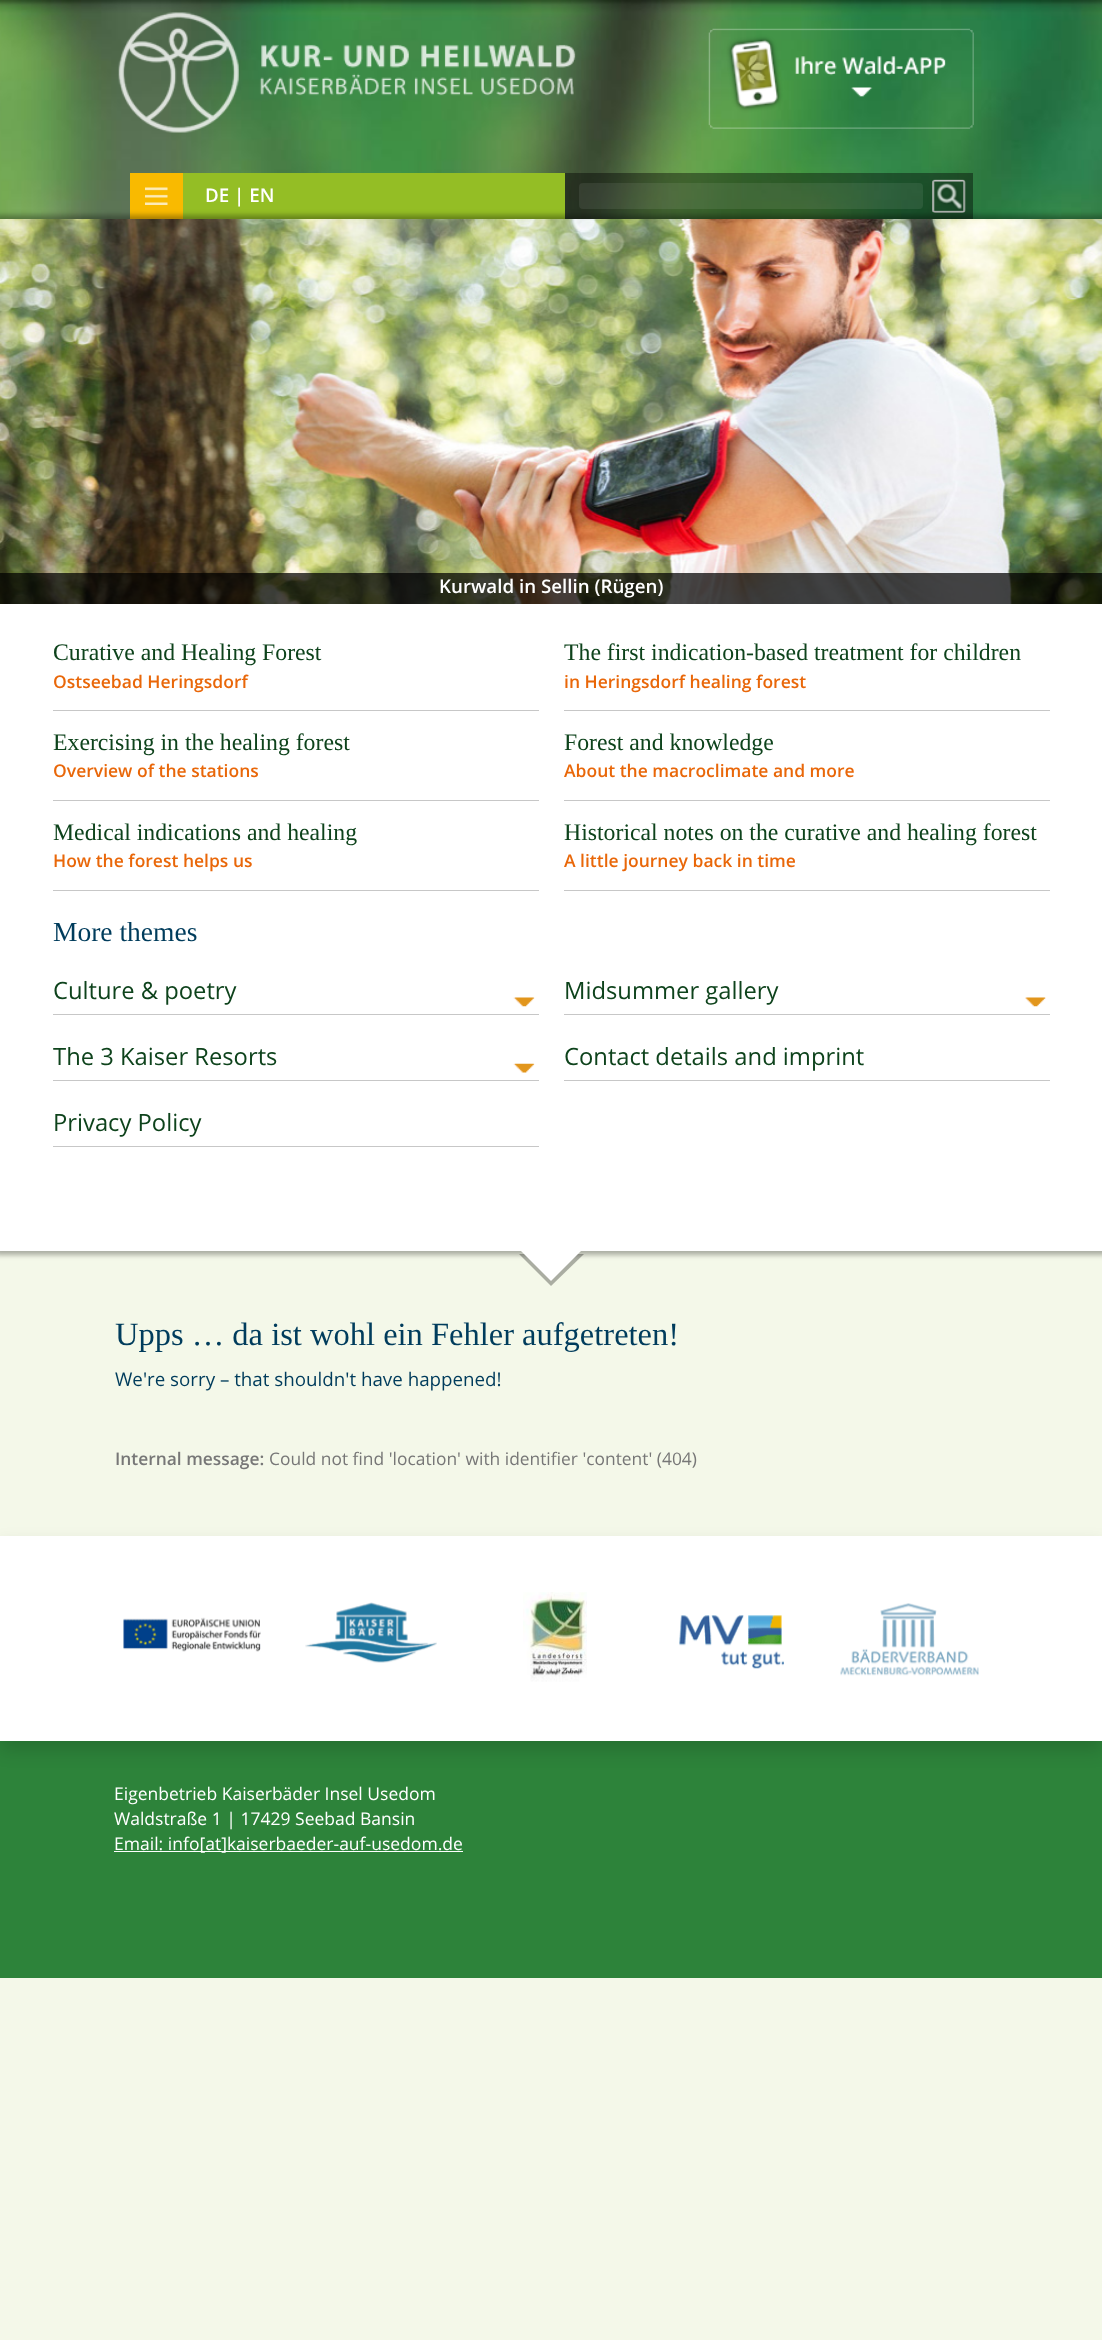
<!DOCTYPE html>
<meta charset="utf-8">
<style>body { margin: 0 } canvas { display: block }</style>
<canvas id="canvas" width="1102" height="2340"></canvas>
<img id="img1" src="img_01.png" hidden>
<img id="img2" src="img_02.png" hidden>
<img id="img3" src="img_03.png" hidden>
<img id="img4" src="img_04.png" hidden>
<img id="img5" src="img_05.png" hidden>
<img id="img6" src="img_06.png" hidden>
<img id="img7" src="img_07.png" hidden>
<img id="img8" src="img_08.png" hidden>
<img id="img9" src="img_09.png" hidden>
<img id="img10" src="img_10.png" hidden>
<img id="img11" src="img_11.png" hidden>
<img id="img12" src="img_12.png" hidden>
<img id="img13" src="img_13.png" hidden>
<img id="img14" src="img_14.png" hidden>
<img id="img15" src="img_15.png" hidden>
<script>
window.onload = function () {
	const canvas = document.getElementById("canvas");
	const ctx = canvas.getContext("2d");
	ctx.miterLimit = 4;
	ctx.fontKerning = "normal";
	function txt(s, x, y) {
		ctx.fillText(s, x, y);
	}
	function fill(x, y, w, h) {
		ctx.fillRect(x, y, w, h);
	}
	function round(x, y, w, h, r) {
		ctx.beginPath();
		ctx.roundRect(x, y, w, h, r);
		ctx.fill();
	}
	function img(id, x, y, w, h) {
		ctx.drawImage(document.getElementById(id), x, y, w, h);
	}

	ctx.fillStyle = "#F4F8E9";
	fill(0, 0, 1102, 2340);
	img("img1", 0, 0, 1102, 219);
	img("img2", 118, 12, 458, 121);
	img("img3", 708, 28, 266, 101);
	ctx.fillStyle = "#F9BA00";
	fill(130, 173, 53, 46);
	img("img4", 145, 187, 23, 18);
	ctx.fillStyle = "#94BE25";
	fill(183, 173, 382, 46);
	ctx.fillStyle = "rgba(0, 0, 0, 0.4)";
	fill(565, 173, 408, 46);
	ctx.fillStyle = "rgba(255, 255, 255, 0.08)";
	round(579, 183, 344, 26, 4);
	img("img5", 932, 179, 34, 34);
	img("img6", 932, 180, 34, 33);
	ctx.fillStyle = "rgba(0, 0, 0, 0.3)";
	ctx.filter = "blur(2.5px)";
	ctx.beginPath();
	ctx.rect(-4, 215, 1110, 1040);
	ctx.fill();
	ctx.filter = "none";
	ctx.fillStyle = "#FFFFFF";
	fill(0, 604, 1102, 647);
	img("img7", 0, 219, 1102, 385);
	ctx.fillStyle = "rgba(0, 0, 0, 0.72)";
	fill(0, 573, 1102, 31);
	ctx.fillStyle = "#C7C7C7";
	fill(53, 710, 486, 1);
	fill(564, 710, 486, 1);
	fill(53, 800, 486, 1);
	fill(564, 800, 486, 1);
	fill(53, 890, 486, 1);
	fill(564, 890, 486, 1);
	fill(53, 1014, 486, 1);
	img("img8", 513, 997, 22, 10);
	fill(564, 1014, 486, 1);
	img("img9", 1025, 997, 21, 10);
	fill(53, 1080, 486, 1);
	img("img10", 513, 1063, 22, 10);
	fill(564, 1080, 486, 1);
	fill(53, 1146, 486, 1);
	ctx.fillStyle = "rgba(0, 0, 0, 0.3)";
	ctx.beginPath();
	ctx.moveTo(519, 1254);
	ctx.lineTo(584, 1254);
	ctx.lineTo(551, 1286);
	ctx.closePath();
	ctx.fill();
	ctx.fillStyle = "#FFFFFF";
	ctx.beginPath();
	ctx.moveTo(520, 1250);
	ctx.lineTo(582, 1250);
	ctx.lineTo(551, 1281);
	ctx.closePath();
	ctx.fill();
	ctx.fillStyle = "#2D833A";
	fill(0, 1741, 1102, 237);
	ctx.fillStyle = "rgba(0, 0, 0, 0.15)";
	ctx.filter = "blur(9px)";
	ctx.beginPath();
	ctx.rect(0, 1545, 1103, 205);
	ctx.fill();
	ctx.filter = "none";
	ctx.fillStyle = "#FFFFFF";
	fill(0, 1536, 1102, 205);
	img("img11", 123, 1617, 138, 35);
	img("img12", 305, 1602, 132, 61);
	img("img13", 523, 1592, 64, 90);
	img("img14", 679, 1615, 105, 54);
	img("img15", 840, 1603, 139, 73);
	fill(114, 1851, 349, 1);
	ctx.font = "600 18.75px Open Sans";
	txt("DE | EN", 205, 202);
	txt("Kurwald in Sellin (Rügen)", 439, 593);
	ctx.font = "23.75px Liberation Serif";
	ctx.fillStyle = "#0E431C";
	txt("Curative and Healing Forest", 53, 660);
	ctx.font = "600 17.5px Open Sans";
	ctx.fillStyle = "#E96709";
	txt("Ostseebad Heringsdorf", 53, 688);
	ctx.font = "23.75px Liberation Serif";
	ctx.fillStyle = "#0E431C";
	txt("The first indication-based treatment for children", 564, 660);
	ctx.font = "600 17.5px Open Sans";
	ctx.fillStyle = "#E96709";
	txt("in Heringsdorf healing forest", 564, 688);
	ctx.font = "23.75px Liberation Serif";
	ctx.fillStyle = "#0E431C";
	txt("Exercising in the healing forest", 53, 750);
	ctx.font = "600 17.5px Open Sans";
	ctx.fillStyle = "#E96709";
	txt("Overview of the stations", 53, 777);
	ctx.font = "23.75px Liberation Serif";
	ctx.fillStyle = "#0E431C";
	txt("Forest and knowledge", 564, 750);
	ctx.font = "600 17.5px Open Sans";
	ctx.fillStyle = "#E96709";
	txt("About the macroclimate and more", 564, 777);
	ctx.font = "23.75px Liberation Serif";
	ctx.fillStyle = "#0E431C";
	txt("Medical indications and healing", 53, 840);
	ctx.font = "600 17.5px Open Sans";
	ctx.fillStyle = "#E96709";
	txt("How the forest helps us", 53, 867);
	ctx.font = "23.75px Liberation Serif";
	ctx.fillStyle = "#0E431C";
	txt("Historical notes on the curative and healing forest", 564, 840);
	ctx.font = "600 17.5px Open Sans";
	ctx.fillStyle = "#E96709";
	txt("A little journey back in time", 564, 867);
	ctx.font = "27.5px Liberation Serif";
	ctx.fillStyle = "#003C5C";
	txt("More themes", 53, 941);
	ctx.font = "23.75px Open Sans";
	ctx.fillStyle = "#0E431C";
	txt("Culture & poetry", 53, 999);
	txt("Midsummer gallery", 564, 999);
	txt("The 3 Kaiser Resorts", 53, 1065);
	txt("Contact details and imprint", 564, 1065);
	txt("Privacy Policy", 53, 1131);
	ctx.font = "32.5px Liberation Serif";
	ctx.fillStyle = "#003C5C";
	txt("Upps … da ist wohl ein Fehler aufgetreten!", 115, 1345);
	ctx.font = "18.75px Open Sans";
	txt("We're sorry – that shouldn't have happened!", 115, 1386);
	ctx.font = "600 17.4px Open Sans";
	ctx.fillStyle = "#777777";
	txt("Internal message:", 115, 1465);
	ctx.font = "17.4px Open Sans";
	txt("Could not find 'location' with identifier 'content' (404)", 269, 1465);
	ctx.font = "17.5px Open Sans";
	ctx.fillStyle = "#FFFFFF";
	txt("Eigenbetrieb Kaiserbäder Insel Usedom", 114, 1800);
	txt("Waldstraße 1 | 17429 Seebad Bansin", 114, 1825);
	txt("Email: info[at]kaiserbaeder-auf-usedom.de", 114, 1850);
};
</script>
